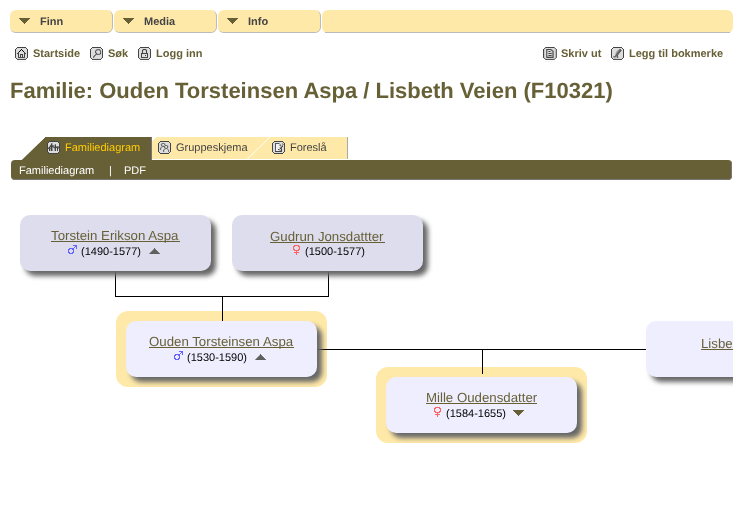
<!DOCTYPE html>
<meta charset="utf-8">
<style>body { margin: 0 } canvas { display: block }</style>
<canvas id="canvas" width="743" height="511"></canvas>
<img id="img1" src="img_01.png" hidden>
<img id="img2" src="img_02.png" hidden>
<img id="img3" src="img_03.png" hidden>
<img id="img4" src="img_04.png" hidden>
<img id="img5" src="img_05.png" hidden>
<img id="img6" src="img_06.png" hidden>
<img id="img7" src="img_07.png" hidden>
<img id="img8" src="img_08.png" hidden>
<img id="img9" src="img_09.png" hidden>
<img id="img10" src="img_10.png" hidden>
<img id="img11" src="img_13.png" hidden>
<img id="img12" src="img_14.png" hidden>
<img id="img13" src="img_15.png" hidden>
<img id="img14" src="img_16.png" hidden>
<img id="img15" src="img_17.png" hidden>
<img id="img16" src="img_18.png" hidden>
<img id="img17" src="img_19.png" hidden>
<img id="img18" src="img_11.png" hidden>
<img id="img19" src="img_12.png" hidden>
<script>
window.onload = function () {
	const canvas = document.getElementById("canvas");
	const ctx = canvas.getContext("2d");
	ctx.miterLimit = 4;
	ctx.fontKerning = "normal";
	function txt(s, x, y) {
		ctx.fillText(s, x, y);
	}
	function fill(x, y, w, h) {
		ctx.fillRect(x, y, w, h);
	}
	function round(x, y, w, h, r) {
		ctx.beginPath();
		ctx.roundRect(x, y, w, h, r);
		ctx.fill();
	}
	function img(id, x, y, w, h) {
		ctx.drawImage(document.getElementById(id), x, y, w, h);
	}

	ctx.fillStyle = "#FFFFFF";
	fill(0, 0, 743, 511);
	ctx.fillStyle = "#FFE9A9";
	round(10, 10, 723, 23, 6);
	ctx.fillStyle = "#BBBBBB";
	fill(332, 32, 398, 1);
	ctx.fillStyle = "#FFFFFF";
	fill(10, 10, 318, 23);
	ctx.fillStyle = "#FFE9A9";
	round(10, 10, 103, 23, 6);
	img("img1", 19, 18, 11, 6);
	ctx.fillStyle = "#BBBBBB";
	ctx.beginPath();
	ctx.moveTo(16, 10);
	ctx.lineTo(107, 10);
	ctx.bezierCurveTo(110, 10, 113, 13, 113, 16);
	ctx.lineTo(113, 27);
	ctx.bezierCurveTo(113, 30, 110, 33, 107, 33);
	ctx.lineTo(16, 33);
	ctx.bezierCurveTo(13, 33, 10, 30, 10, 27);
	ctx.lineTo(10, 16);
	ctx.bezierCurveTo(10, 13, 13, 10, 16, 10);
	ctx.closePath();
	ctx.moveTo(16, 10);
	ctx.lineTo(107, 10);
	ctx.bezierCurveTo(110, 10, 112, 13, 112, 16);
	ctx.lineTo(112, 27);
	ctx.bezierCurveTo(112, 30, 110, 32, 107, 32);
	ctx.lineTo(16, 32);
	ctx.bezierCurveTo(13, 32, 10, 30, 10, 27);
	ctx.lineTo(10, 16);
	ctx.bezierCurveTo(10, 13, 13, 10, 16, 10);
	ctx.closePath();
	ctx.fill("evenodd");
	ctx.fillStyle = "#FFE9A9";
	round(114, 10, 103, 23, 6);
	img("img1", 123, 18, 11, 6);
	ctx.fillStyle = "#BBBBBB";
	ctx.beginPath();
	ctx.moveTo(120, 10);
	ctx.lineTo(211, 10);
	ctx.bezierCurveTo(214, 10, 217, 13, 217, 16);
	ctx.lineTo(217, 27);
	ctx.bezierCurveTo(217, 30, 214, 33, 211, 33);
	ctx.lineTo(120, 33);
	ctx.bezierCurveTo(117, 33, 114, 30, 114, 27);
	ctx.lineTo(114, 16);
	ctx.bezierCurveTo(114, 13, 117, 10, 120, 10);
	ctx.closePath();
	ctx.moveTo(120, 10);
	ctx.lineTo(211, 10);
	ctx.bezierCurveTo(214, 10, 216, 13, 216, 16);
	ctx.lineTo(216, 27);
	ctx.bezierCurveTo(216, 30, 214, 32, 211, 32);
	ctx.lineTo(120, 32);
	ctx.bezierCurveTo(117, 32, 114, 30, 114, 27);
	ctx.lineTo(114, 16);
	ctx.bezierCurveTo(114, 13, 117, 10, 120, 10);
	ctx.closePath();
	ctx.fill("evenodd");
	ctx.fillStyle = "#FFE9A9";
	round(218, 10, 103, 23, 6);
	img("img1", 227, 18, 11, 6);
	ctx.fillStyle = "#BBBBBB";
	ctx.beginPath();
	ctx.moveTo(224, 10);
	ctx.lineTo(315, 10);
	ctx.bezierCurveTo(318, 10, 321, 13, 321, 16);
	ctx.lineTo(321, 27);
	ctx.bezierCurveTo(321, 30, 318, 33, 315, 33);
	ctx.lineTo(224, 33);
	ctx.bezierCurveTo(221, 33, 218, 30, 218, 27);
	ctx.lineTo(218, 16);
	ctx.bezierCurveTo(218, 13, 221, 10, 224, 10);
	ctx.closePath();
	ctx.moveTo(224, 10);
	ctx.lineTo(315, 10);
	ctx.bezierCurveTo(318, 10, 320, 13, 320, 16);
	ctx.lineTo(320, 27);
	ctx.bezierCurveTo(320, 30, 318, 32, 315, 32);
	ctx.lineTo(224, 32);
	ctx.bezierCurveTo(221, 32, 218, 30, 218, 27);
	ctx.lineTo(218, 16);
	ctx.bezierCurveTo(218, 13, 221, 10, 224, 10);
	ctx.closePath();
	ctx.fill("evenodd");
	ctx.fillStyle = "#FFE9A9";
	ctx.beginPath();
	ctx.roundRect(322, 10, 10, 23, [6, 0, 0, 6]);
	ctx.fill();
	ctx.fillStyle = "#BBBBBB";
	fill(325, 32, 7, 1);
	img("img2", 15, 47, 13, 15);
	img("img3", 90, 47, 13, 15);
	img("img4", 138, 47, 13, 15);
	img("img5", 543, 47, 14, 15);
	img("img6", 611, 47, 13, 15);
	img("img7", 22, 137, 129, 23);
	ctx.fillStyle = "#777777";
	fill(151, 137, 1, 23);
	img("img8", 47, 141, 13, 13);
	img("img9", 152, 137, 117, 22);
	img("img10", 158, 141, 13, 13);
	ctx.fillStyle = "#AAAAAA";
	fill(347, 137, 1, 22);
	ctx.fillStyle = "#676037";
	round(11, 160, 721, 20, 4);
	ctx.fillStyle = "#777777";
	ctx.beginPath();
	ctx.moveTo(15, 160);
	ctx.lineTo(728, 160);
	ctx.bezierCurveTo(730, 160, 732, 162, 732, 164);
	ctx.lineTo(732, 176);
	ctx.bezierCurveTo(732, 178, 730, 180, 728, 180);
	ctx.lineTo(15, 180);
	ctx.bezierCurveTo(13, 180, 11, 178, 11, 176);
	ctx.lineTo(11, 164);
	ctx.bezierCurveTo(11, 162, 13, 160, 15, 160);
	ctx.closePath();
	ctx.moveTo(15, 160);
	ctx.lineTo(728, 160);
	ctx.bezierCurveTo(730, 160, 731, 162, 731, 164);
	ctx.lineTo(731, 176);
	ctx.bezierCurveTo(731, 178, 730, 179, 728, 179);
	ctx.lineTo(15, 179);
	ctx.bezierCurveTo(13, 179, 11, 178, 11, 176);
	ctx.lineTo(11, 164);
	ctx.bezierCurveTo(11, 162, 13, 160, 15, 160);
	ctx.closePath();
	ctx.fill("evenodd");
	ctx.fillStyle = "#000000";
	fill(328, 271, 1, 26);
	fill(115, 296, 214, 1);
	fill(115, 271, 1, 26);
	ctx.fillStyle = "#666666";
	ctx.filter = "blur(2.5px)";
	ctx.beginPath();
	ctx.roundRect(25, 220, 191, 56, 10);
	ctx.fill();
	ctx.filter = "none";
	ctx.fillStyle = "#DDDDEE";
	round(20, 215, 191, 56, 10);
	ctx.fillStyle = "#676037";
	fill(51, 241, 129, 1);
	img("img11", 68, 245, 9, 9);
	img("img12", 149, 248, 11, 6);
	ctx.fillStyle = "#666666";
	ctx.filter = "blur(2.5px)";
	ctx.beginPath();
	ctx.roundRect(237, 220, 191, 56, 10);
	ctx.fill();
	ctx.filter = "none";
	ctx.fillStyle = "#DDDDEE";
	round(232, 215, 191, 56, 10);
	ctx.fillStyle = "#676037";
	fill(270, 242, 115, 1);
	img("img13", 293, 245, 7, 10);
	ctx.fillStyle = "#FFE9A9";
	round(116, 311, 211, 76, 12);
	ctx.fillStyle = "#000000";
	fill(222, 296, 1, 25);
	fill(317, 349, 330, 1);
	ctx.fillStyle = "#666666";
	ctx.filter = "blur(2.5px)";
	ctx.beginPath();
	ctx.roundRect(131, 326, 191, 56, 10);
	ctx.fill();
	ctx.filter = "none";
	ctx.fillStyle = "#EEEEFF";
	round(126, 321, 191, 56, 10);
	ctx.fillStyle = "#676037";
	fill(149, 347, 145, 1);
	img("img14", 174, 351, 9, 9);
	img("img15", 255, 354, 11, 6);
	ctx.save();
	ctx.beginPath();
	ctx.rect(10, 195, 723, 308);
	ctx.clip();
	ctx.fillStyle = "#666666";
	ctx.filter = "blur(2.5px)";
	ctx.beginPath();
	ctx.roundRect(651, 326, 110, 56, 10);
	ctx.fill();
	ctx.filter = "none";
	ctx.restore();
	ctx.fillStyle = "#EEEEFF";
	ctx.beginPath();
	ctx.roundRect(646, 321, 87, 56, [10, 0, 0, 10]);
	ctx.fill();
	ctx.fillStyle = "#676037";
	fill(701, 349, 32, 1);
	ctx.fillStyle = "#FFE9A9";
	round(376, 367, 211, 76, 12);
	ctx.fillStyle = "#000000";
	fill(482, 349, 1, 25);
	ctx.fillStyle = "#666666";
	ctx.filter = "blur(2.5px)";
	ctx.beginPath();
	ctx.roundRect(391, 382, 191, 56, 10);
	ctx.fill();
	ctx.filter = "none";
	ctx.fillStyle = "#EEEEFF";
	round(386, 377, 191, 56, 10);
	ctx.fillStyle = "#676037";
	fill(426, 403, 111, 1);
	img("img16", 434, 407, 7, 10);
	img("img17", 513, 410, 11, 6);
	ctx.font = "bold 11px Liberation Sans";
	ctx.fillStyle = "#444444";
	txt("Finn", 40, 25);
	txt("Media", 144, 25);
	txt("Info", 248, 25);
	ctx.fillStyle = "#676037";
	txt("Startside", 33, 57);
	txt("Søk", 108, 57);
	txt("Logg inn", 156, 57);
	txt("Skriv ut", 561, 57);
	txt("Legg til bokmerke", 629, 57);
	ctx.font = "bold 22px Liberation Sans";
	txt("Familie: Ouden Torsteinsen Aspa / Lisbeth Veien (F10321)", 10, 98);
	ctx.font = "11px Liberation Sans";
	ctx.fillStyle = "#FFCC00";
	txt("Familiediagram", 65, 151);
	ctx.fillStyle = "#444444";
	txt("Gruppeskjema", 176, 151);
	img("img18", 247, 137, 100, 22);
	img("img19", 272, 141, 13, 13);
	txt("Foreslå", 290, 151);
	ctx.fillStyle = "#FFFFFF";
	txt("Familiediagram", 19, 174);
	txt("|", 109, 174);
	txt("PDF", 124, 174);
	ctx.font = "13.25px Liberation Sans";
	ctx.fillStyle = "#676037";
	txt("Torstein Erikson Aspa", 51, 240);
	ctx.font = "11px Liberation Sans";
	ctx.fillStyle = "#000000";
	txt("(1490-1577)", 81, 255);
	ctx.font = "13.25px Liberation Sans";
	ctx.fillStyle = "#676037";
	txt("Gudrun Jonsdattter", 270, 241);
	ctx.font = "11px Liberation Sans";
	ctx.fillStyle = "#000000";
	txt("(1500-1577)", 305, 255);
	ctx.font = "13.25px Liberation Sans";
	ctx.fillStyle = "#676037";
	txt("Ouden Torsteinsen Aspa", 149, 346);
	ctx.font = "11px Liberation Sans";
	ctx.fillStyle = "#000000";
	txt("(1530-1590)", 187, 361);
	ctx.font = "13.25px Liberation Sans";
	ctx.fillStyle = "#676037";
	txt("Lisbe", 701, 348);
	txt("Mille Oudensdatter", 426, 402);
	ctx.font = "11px Liberation Sans";
	ctx.fillStyle = "#000000";
	txt("(1584-1655)", 446, 417);
};
</script>
